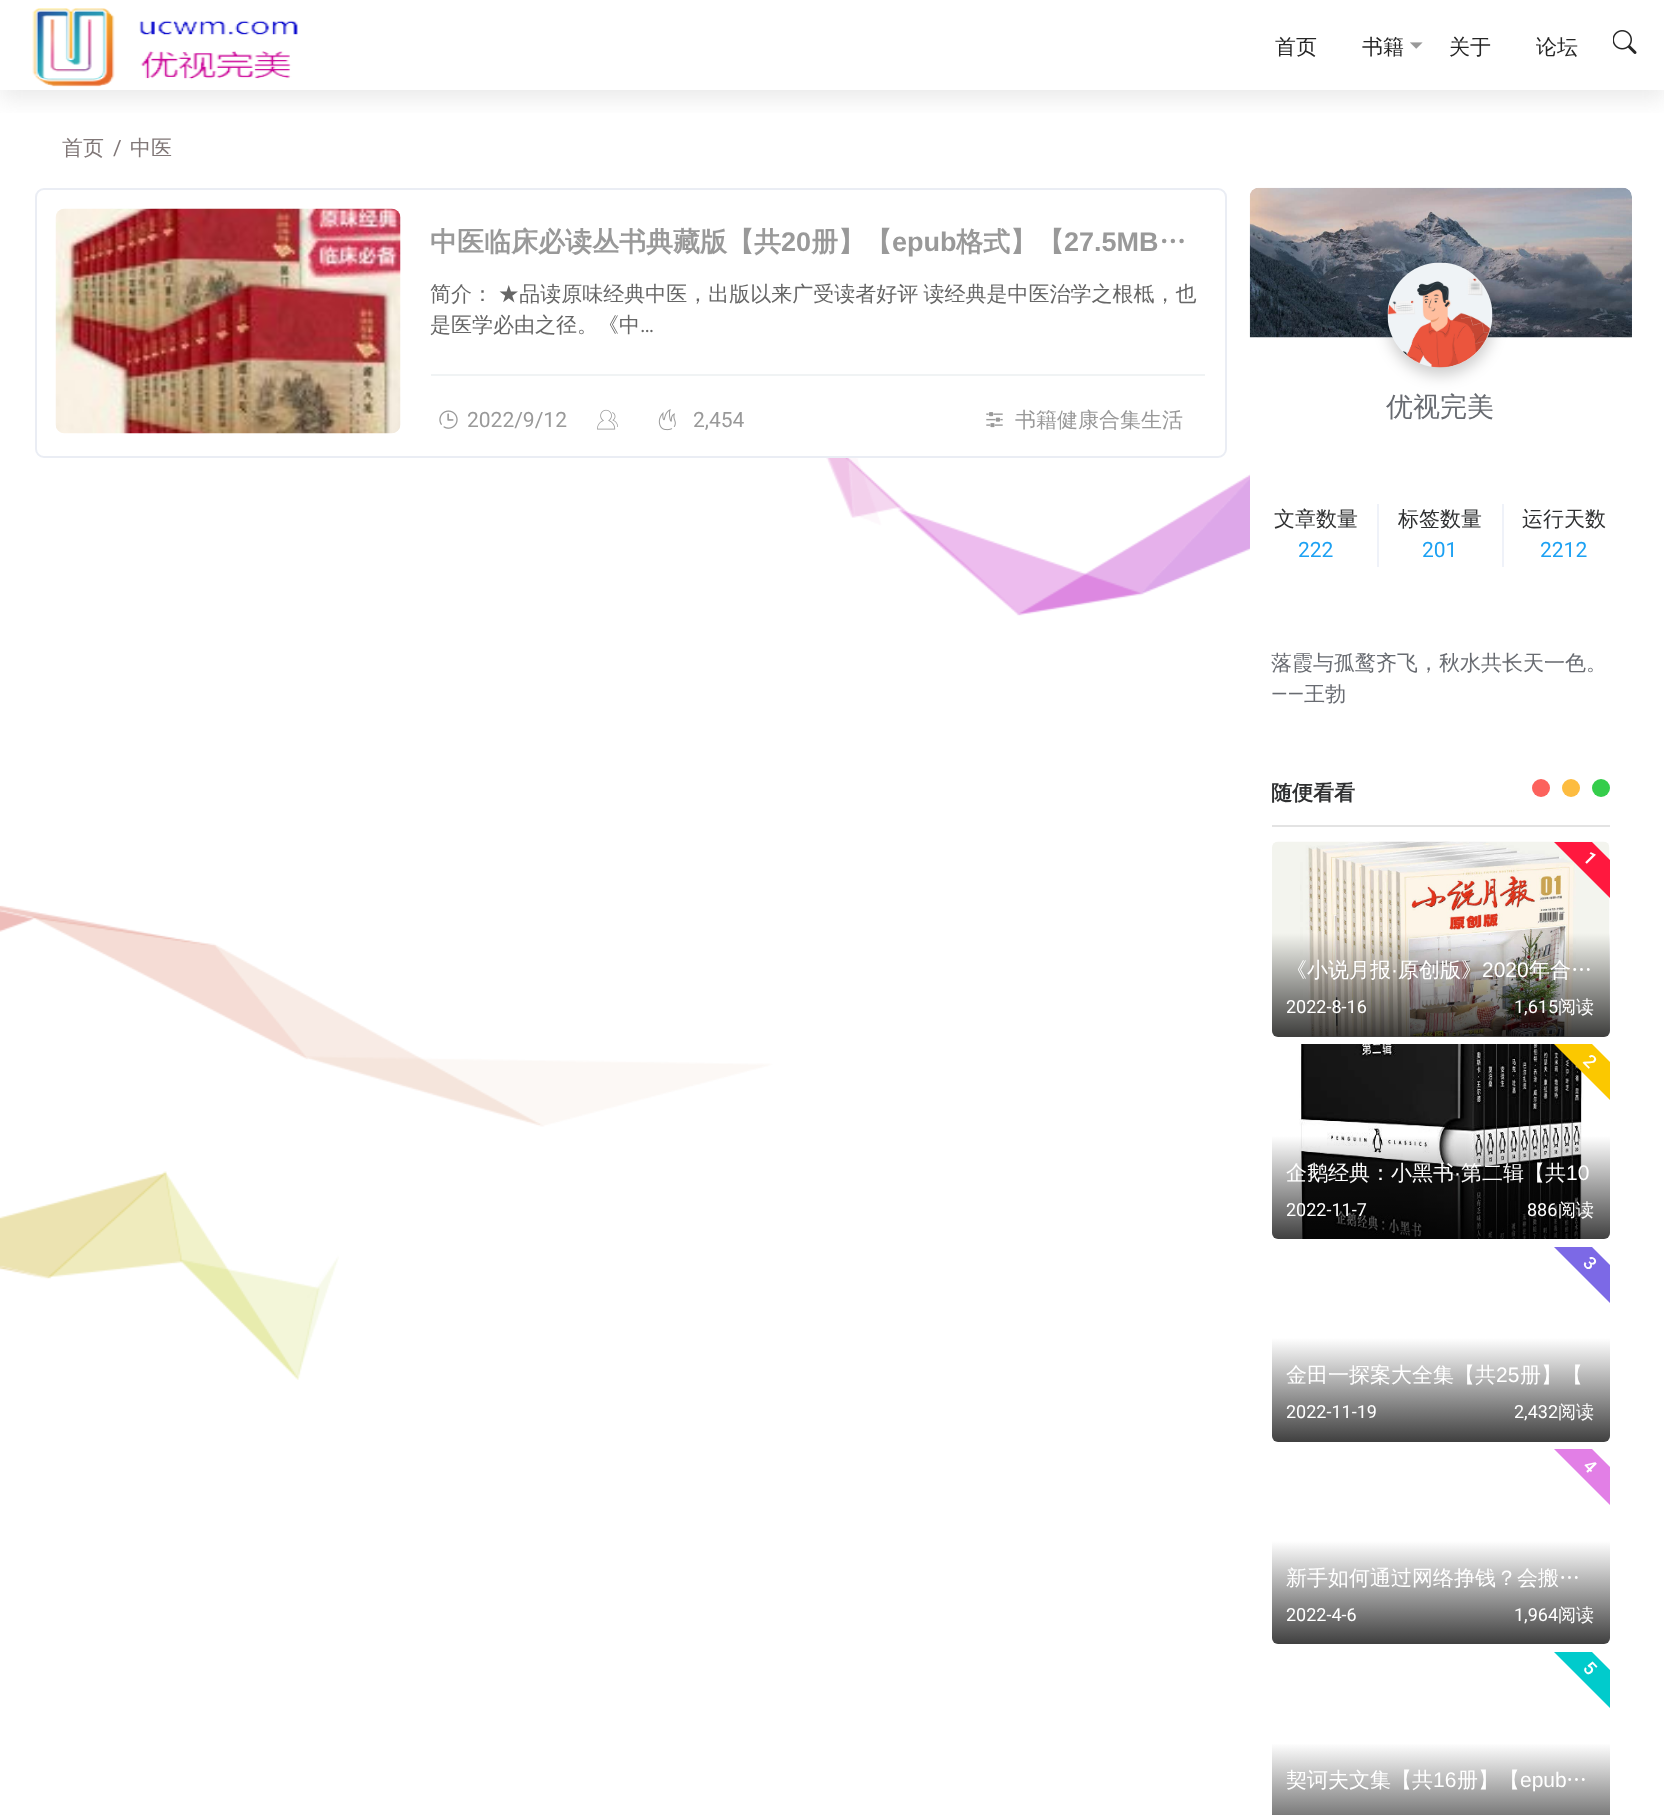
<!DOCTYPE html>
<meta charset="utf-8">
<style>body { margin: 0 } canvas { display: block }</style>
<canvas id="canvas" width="1664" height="1815"></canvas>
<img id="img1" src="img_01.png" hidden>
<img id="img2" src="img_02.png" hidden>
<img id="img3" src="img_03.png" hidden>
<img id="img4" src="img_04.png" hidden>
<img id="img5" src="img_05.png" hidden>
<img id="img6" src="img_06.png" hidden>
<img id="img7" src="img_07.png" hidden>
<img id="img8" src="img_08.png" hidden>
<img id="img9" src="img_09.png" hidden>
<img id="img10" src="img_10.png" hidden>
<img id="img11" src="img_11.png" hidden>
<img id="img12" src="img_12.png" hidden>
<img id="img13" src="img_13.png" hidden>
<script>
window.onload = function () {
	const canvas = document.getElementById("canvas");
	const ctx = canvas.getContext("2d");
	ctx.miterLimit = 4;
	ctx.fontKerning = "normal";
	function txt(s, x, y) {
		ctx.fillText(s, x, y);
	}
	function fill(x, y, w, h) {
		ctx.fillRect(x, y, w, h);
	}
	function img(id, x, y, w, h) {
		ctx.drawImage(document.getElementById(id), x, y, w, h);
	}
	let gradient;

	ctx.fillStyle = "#FFFFFF";
	fill(0, 0, 1664, 1815);
	ctx.save();
	ctx.beginPath();
	ctx.rect(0, 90, 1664, 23);
	ctx.clip();
	ctx.fillStyle = "rgba(142, 142, 142, 0.19)";
	ctx.filter = "blur(11px)";
	ctx.beginPath();
	ctx.rect(0, 9, 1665, 90);
	ctx.fill();
	ctx.filter = "none";
	ctx.restore();
	img("img1", 32, 8, 266, 79);
	img("img2", 1410, 42, 13, 7);
	img("img3", 1613, 30, 24, 24);
	ctx.beginPath();
	ctx.roundRect(36, 189, 1190, 268, 8);
	ctx.strokeStyle = "#EAEDF4";
	ctx.lineWidth = 2;
	ctx.stroke();
	img("img4", 55, 208, 346, 226);
	ctx.fillStyle = "#F0F3F4";
	fill(431, 374, 774, 2);
	img("img5", 439, 410, 19, 19);
	img("img6", 597, 409, 21, 21);
	img("img7", 658, 409, 18, 22);
	img("img8", 986, 412, 17, 16);
	img("img9", 1249, 187, 383, 151);
	ctx.fillStyle = "rgba(0, 0, 0, 0.2)";
	ctx.filter = "blur(7.5px)";
	ctx.beginPath();
	ctx.roundRect(1388, 270, 105, 105, 52.5);
	ctx.fill();
	ctx.filter = "none";
	img("img10", 1387, 262, 106, 106);
	ctx.fillStyle = "#EFF2F9";
	fill(1377, 504, 2, 63);
	fill(1502, 504, 2, 63);
	ctx.fillStyle = "#E3E3E3";
	fill(1272, 825, 338, 2);
	ctx.fillStyle = "#35CD4B";
	ctx.beginPath();
	ctx.arc(1601, 788, 9, 0, Math.PI * 2);
	ctx.fill();
	ctx.fillStyle = "#FDBC40";
	ctx.beginPath();
	ctx.arc(1571, 788, 9, 0, Math.PI * 2);
	ctx.fill();
	ctx.fillStyle = "#FC625D";
	ctx.beginPath();
	ctx.arc(1541, 788, 9, 0, Math.PI * 2);
	ctx.fill();
	img("img11", 1272, 841, 338, 196);
	ctx.fillStyle = "#FF183E";
	ctx.beginPath();
	ctx.moveTo(1610, 898);
	ctx.lineTo(1554, 842);
	ctx.lineTo(1592, 842);
	ctx.lineTo(1610, 860);
	ctx.closePath();
	ctx.fill();
	gradient = ctx.createLinearGradient(1441, 933, 1441, 1037);
	gradient.addColorStop(0, "rgba(0, 0, 0, 0)");
	gradient.addColorStop(1, "rgba(0, 0, 0, 0.75)");
	ctx.fillStyle = gradient;
	ctx.beginPath();
	ctx.roundRect(1272, 933, 338, 104, [0, 0, 6, 6]);
	ctx.fill();
	img("img12", 1299, 1044, 285, 195);
	ctx.fillStyle = "#FBC800";
	ctx.beginPath();
	ctx.moveTo(1610, 1100);
	ctx.lineTo(1554, 1044);
	ctx.lineTo(1592, 1044);
	ctx.lineTo(1610, 1062);
	ctx.closePath();
	ctx.fill();
	gradient = ctx.createLinearGradient(1441, 1136, 1441, 1239);
	gradient.addColorStop(0, "rgba(0, 0, 0, 0)");
	gradient.addColorStop(1, "rgba(0, 0, 0, 0.75)");
	ctx.fillStyle = gradient;
	ctx.beginPath();
	ctx.roundRect(1272, 1136, 338, 103, [0, 0, 6, 6]);
	ctx.fill();
	ctx.fillStyle = "#7C69E6";
	ctx.beginPath();
	ctx.moveTo(1610, 1303);
	ctx.lineTo(1554, 1247);
	ctx.lineTo(1592, 1247);
	ctx.lineTo(1610, 1265);
	ctx.closePath();
	ctx.fill();
	gradient = ctx.createLinearGradient(1441, 1338, 1441, 1442);
	gradient.addColorStop(0, "#FFFFFF");
	gradient.addColorStop(1, "#404040");
	ctx.fillStyle = gradient;
	ctx.beginPath();
	ctx.roundRect(1272, 1338, 338, 104, [0, 0, 6, 6]);
	ctx.fill();
	ctx.fillStyle = "#E27FE6";
	ctx.beginPath();
	ctx.moveTo(1610, 1505);
	ctx.lineTo(1554, 1449);
	ctx.lineTo(1592, 1449);
	ctx.lineTo(1610, 1467);
	ctx.closePath();
	ctx.fill();
	gradient = ctx.createLinearGradient(1441, 1541, 1441, 1644);
	gradient.addColorStop(0, "#FFFFFF");
	gradient.addColorStop(1, "#404040");
	ctx.fillStyle = gradient;
	ctx.beginPath();
	ctx.roundRect(1272, 1541, 338, 103, [0, 0, 6, 6]);
	ctx.fill();
	ctx.fillStyle = "#01CBCC";
	ctx.beginPath();
	ctx.moveTo(1610, 1708);
	ctx.lineTo(1554, 1652);
	ctx.lineTo(1592, 1652);
	ctx.lineTo(1610, 1670);
	ctx.closePath();
	ctx.fill();
	gradient = ctx.createLinearGradient(1441, 1743, 1441, 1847);
	gradient.addColorStop(0, "#FFFFFF");
	gradient.addColorStop(1, "#404040");
	ctx.fillStyle = gradient;
	fill(1272, 1744, 338, 71);
	img("img13", 0, 458, 1250, 922);
	ctx.font = "500 21px WenQuanYi Zen Hei";
	ctx.fillStyle = "#262626";
	txt("首页", 1275, 54);
	txt("书籍", 1362, 54);
	txt("关于", 1449, 54);
	txt("论坛", 1536, 54);
	ctx.fillStyle = "#807777";
	txt("首页", 62, 155);
	ctx.font = "21px Roboto";
	txt("/", 113, 155);
	ctx.font = "500 21px WenQuanYi Zen Hei";
	txt("中医", 130, 155);
	ctx.font = "bold 27px WenQuanYi Zen Hei";
	ctx.fillStyle = "#999999";
	txt("中医临床必读丛书典藏版【共", 430, 251);
	ctx.font = "bold 27px Liberation Sans";
	txt("20", 781, 251);
	ctx.font = "bold 27px WenQuanYi Zen Hei";
	txt("册】【", 811, 251);
	ctx.font = "bold 27px Liberation Sans";
	txt("epub", 892, 251);
	ctx.font = "bold 27px WenQuanYi Zen Hei";
	txt("格式】【", 956, 251);
	ctx.font = "bold 27px Liberation Sans";
	txt("27.5MB", 1064, 251);
	ctx.font = "bold 27px WenQuanYi Zen Hei";
	txt("…", 1159, 251);
	ctx.wordSpacing = "-1px";
	ctx.font = "500 21px WenQuanYi Zen Hei";
	ctx.fillStyle = "#666666";
	txt("简介： ★品读原味经典中医，出版以来广受读者好评 读经典是中医治学之根柢，也", 430, 301);
	ctx.wordSpacing = "0px";
	txt("是医学必由之径。《中", 430, 332);
	ctx.font = "21px Roboto";
	txt("…", 640, 332);
	ctx.fillStyle = "#999999";
	txt("2022/9/12", 467, 427);
	txt("2,454", 693, 427);
	ctx.font = "500 21px WenQuanYi Zen Hei";
	txt("书籍健康合集生活", 1015, 427);
	ctx.font = "500 27px WenQuanYi Zen Hei";
	ctx.fillStyle = "#686B71";
	txt("优视完美", 1386, 416);
	ctx.font = "500 21px WenQuanYi Zen Hei";
	ctx.fillStyle = "#2F3031";
	txt("文章数量", 1274, 526);
	ctx.font = "21px Roboto";
	ctx.fillStyle = "#1CA1F3";
	txt("222", 1298, 557);
	ctx.font = "500 21px WenQuanYi Zen Hei";
	ctx.fillStyle = "#2F3031";
	txt("标签数量", 1398, 526);
	ctx.font = "21px Roboto";
	ctx.fillStyle = "#1CA1F3";
	txt("201", 1422, 557);
	ctx.font = "500 21px WenQuanYi Zen Hei";
	ctx.fillStyle = "#2F3031";
	txt("运行天数", 1522, 526);
	ctx.font = "21px Roboto";
	ctx.fillStyle = "#1CA1F3";
	txt("2212", 1540, 557);
	ctx.font = "500 21px WenQuanYi Zen Hei";
	ctx.fillStyle = "#686B71";
	txt("落霞与孤鹜齐飞，秋水共长天一色。", 1271, 670);
	ctx.font = "21px Roboto";
	txt("——", 1271, 701);
	ctx.font = "500 21px WenQuanYi Zen Hei";
	txt("王勃", 1304, 701);
	ctx.font = "bold 21px WenQuanYi Zen Hei";
	ctx.fillStyle = "#2F3031";
	txt("随便看看", 1271, 800);
	ctx.font = "500 18px Roboto";
	ctx.fillStyle = "#FFFFFF";
	ctx.save();
	ctx.translate(1582, 859);
	ctx.rotate(45 * Math.PI / 180);
	ctx.fillText("1", 0, 0);
	ctx.restore();
	ctx.font = "500 21px WenQuanYi Zen Hei";
	txt("《小说月报", 1286, 977);
	ctx.font = "21px Liberation Sans";
	txt("·", 1391, 977);
	ctx.font = "500 21px WenQuanYi Zen Hei";
	txt("原创版》", 1398, 977);
	ctx.font = "21px Liberation Sans";
	txt("2020", 1482, 977);
	ctx.font = "500 21px WenQuanYi Zen Hei";
	txt("年合…", 1529, 977);
	ctx.font = "18px Roboto";
	txt("2022-8-16", 1286, 1013);
	txt("1,615", 1514, 1013);
	ctx.font = "500 18px WenQuanYi Zen Hei";
	txt("阅读", 1558, 1013);
	ctx.font = "500 18px Roboto";
	ctx.save();
	ctx.translate(1582, 1062);
	ctx.rotate(45 * Math.PI / 180);
	ctx.fillText("2", 0, 0);
	ctx.restore();
	ctx.font = "500 21px WenQuanYi Zen Hei";
	txt("企鹅经典：小黑书", 1286, 1180);
	ctx.font = "21px Liberation Sans";
	txt("·", 1454, 1180);
	ctx.font = "500 21px WenQuanYi Zen Hei";
	txt("第二辑【共", 1461, 1180);
	ctx.font = "21px Liberation Sans";
	txt("10", 1566, 1180);
	ctx.font = "18px Roboto";
	txt("2022-11-7", 1286, 1216);
	txt("886", 1527, 1216);
	ctx.font = "500 18px WenQuanYi Zen Hei";
	txt("阅读", 1558, 1216);
	ctx.font = "500 18px Roboto";
	ctx.save();
	ctx.translate(1582, 1264);
	ctx.rotate(45 * Math.PI / 180);
	ctx.fillText("3", 0, 0);
	ctx.restore();
	ctx.font = "500 21px WenQuanYi Zen Hei";
	txt("金田一探案大全集【共", 1286, 1382);
	ctx.font = "21px Liberation Sans";
	txt("25", 1496, 1382);
	ctx.font = "500 21px WenQuanYi Zen Hei";
	txt("册】【", 1520, 1382);
	ctx.font = "18px Roboto";
	txt("2022-11-19", 1286, 1418);
	txt("2,432", 1514, 1418);
	ctx.font = "500 18px WenQuanYi Zen Hei";
	txt("阅读", 1558, 1418);
	ctx.font = "500 18px Roboto";
	ctx.save();
	ctx.translate(1582, 1467);
	ctx.rotate(45 * Math.PI / 180);
	ctx.fillText("4", 0, 0);
	ctx.restore();
	ctx.font = "500 21px WenQuanYi Zen Hei";
	txt("新手如何通过网络挣钱？会搬…", 1286, 1585);
	ctx.font = "18px Roboto";
	txt("2022-4-6", 1286, 1621);
	txt("1,964", 1514, 1621);
	ctx.font = "500 18px WenQuanYi Zen Hei";
	txt("阅读", 1558, 1621);
	ctx.font = "500 18px Roboto";
	ctx.save();
	ctx.translate(1582, 1669);
	ctx.rotate(45 * Math.PI / 180);
	ctx.fillText("5", 0, 0);
	ctx.restore();
	ctx.font = "500 21px WenQuanYi Zen Hei";
	txt("契诃夫文集【共", 1286, 1787);
	ctx.font = "21px Liberation Sans";
	txt("16", 1433, 1787);
	ctx.font = "500 21px WenQuanYi Zen Hei";
	txt("册】【", 1457, 1787);
	ctx.font = "21px Liberation Sans";
	txt("epub", 1520, 1787);
	ctx.font = "500 21px WenQuanYi Zen Hei";
	txt("…", 1566, 1787);
};
</script>
